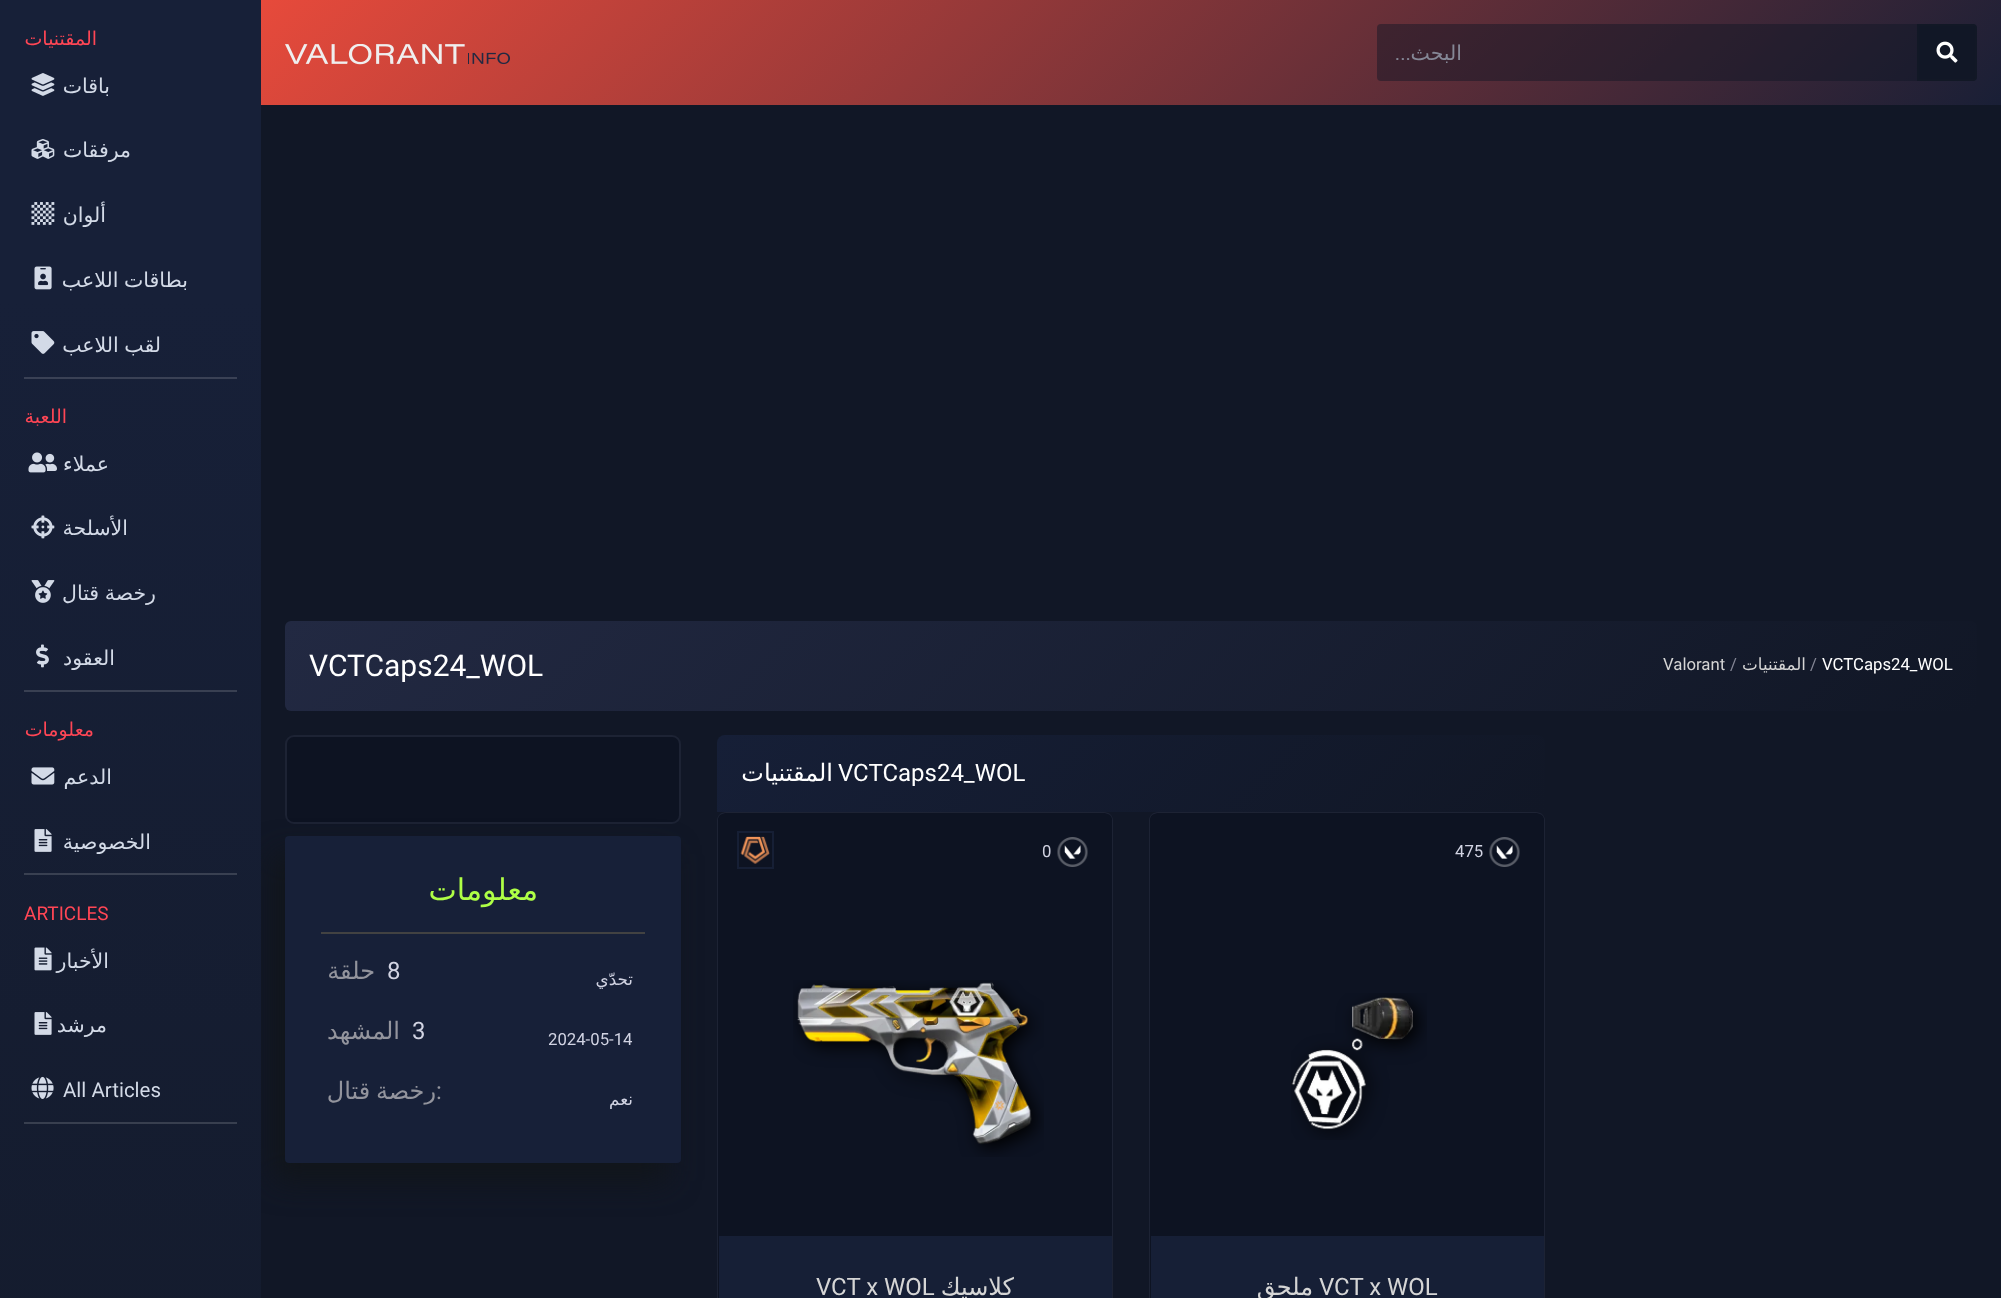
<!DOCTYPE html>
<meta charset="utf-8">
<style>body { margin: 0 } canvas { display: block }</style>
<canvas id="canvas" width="2001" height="1298"></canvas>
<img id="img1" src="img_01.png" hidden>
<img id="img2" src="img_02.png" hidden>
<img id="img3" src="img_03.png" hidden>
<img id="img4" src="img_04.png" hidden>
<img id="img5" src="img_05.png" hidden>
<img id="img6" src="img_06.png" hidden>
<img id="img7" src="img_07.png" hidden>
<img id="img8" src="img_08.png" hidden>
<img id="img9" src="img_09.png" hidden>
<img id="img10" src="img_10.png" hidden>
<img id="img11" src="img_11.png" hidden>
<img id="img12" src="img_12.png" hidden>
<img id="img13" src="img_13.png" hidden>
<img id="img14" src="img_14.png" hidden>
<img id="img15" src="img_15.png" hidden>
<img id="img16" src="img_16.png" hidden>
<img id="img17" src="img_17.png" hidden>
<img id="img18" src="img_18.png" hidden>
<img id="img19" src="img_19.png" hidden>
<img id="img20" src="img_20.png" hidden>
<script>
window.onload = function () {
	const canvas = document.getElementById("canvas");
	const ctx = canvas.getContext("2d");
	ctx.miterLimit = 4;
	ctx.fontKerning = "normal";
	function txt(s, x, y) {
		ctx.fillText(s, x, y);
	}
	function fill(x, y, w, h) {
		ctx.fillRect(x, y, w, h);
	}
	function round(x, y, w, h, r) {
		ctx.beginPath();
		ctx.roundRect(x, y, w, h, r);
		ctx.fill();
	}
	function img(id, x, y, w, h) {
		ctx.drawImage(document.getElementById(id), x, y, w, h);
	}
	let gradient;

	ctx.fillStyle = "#111726";
	fill(0, 0, 2001, 1298);
	gradient = ctx.createLinearGradient(670, -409, 1592, 514);
	gradient.addColorStop(0, "#E74A3B");
	gradient.addColorStop(1, "#191F36");
	ctx.fillStyle = gradient;
	fill(261, 0, 1740, 105);
	ctx.fillStyle = "rgba(16, 22, 38, 0.46)";
	ctx.beginPath();
	ctx.roundRect(1377, 24, 542, 57, [4, 0, 0, 4]);
	ctx.fill();
	ctx.fillStyle = "#111726";
	ctx.beginPath();
	ctx.roundRect(1918, 25, 58, 55, [0, 3, 3, 0]);
	ctx.fill();
	ctx.strokeStyle = "#121826";
	ctx.lineWidth = 2;
	ctx.stroke();
	img("img1", 1936, 41, 22, 22);
	img("img2", 285, 44, 225, 21);
	gradient = ctx.createLinearGradient(685, 221, 1577, 1112);
	gradient.addColorStop(0, "#222942");
	gradient.addColorStop(1, "#111726");
	ctx.fillStyle = gradient;
	round(285, 621, 1692, 90, 6);
	gradient = ctx.createLinearGradient(905, 547, 1357, 999);
	gradient.addColorStop(0, "#161F37");
	gradient.addColorStop(1, "#111726");
	ctx.fillStyle = gradient;
	ctx.beginPath();
	ctx.roundRect(717, 735, 828, 77, [8, 8, 0, 0]);
	ctx.fill();
	ctx.fillStyle = "#0D1322";
	ctx.beginPath();
	ctx.moveTo(1158, 813);
	ctx.lineTo(1536, 813);
	ctx.bezierCurveTo(1540, 813, 1544, 816, 1544, 820);
	ctx.lineTo(1544, 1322);
	ctx.bezierCurveTo(1544, 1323, 1540, 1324, 1536, 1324);
	ctx.lineTo(1158, 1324);
	ctx.bezierCurveTo(1154, 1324, 1150, 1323, 1150, 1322);
	ctx.lineTo(1150, 820);
	ctx.bezierCurveTo(1150, 816, 1154, 813, 1158, 813);
	ctx.closePath();
	ctx.fill();
	ctx.fillStyle = "#1D2334";
	ctx.beginPath();
	ctx.moveTo(1158, 812);
	ctx.bezierCurveTo(1156, 812, 1153, 813, 1152, 814);
	ctx.lineTo(1152, 815);
	ctx.bezierCurveTo(1154, 814, 1156, 813, 1158, 813);
	ctx.lineTo(1536, 813);
	ctx.bezierCurveTo(1538, 813, 1540, 814, 1542, 815);
	ctx.lineTo(1542, 814);
	ctx.bezierCurveTo(1541, 813, 1538, 812, 1536, 812);
	ctx.closePath();
	ctx.fill();
	ctx.beginPath();
	ctx.moveTo(1542, 814);
	ctx.bezierCurveTo(1544, 816, 1545, 818, 1545, 820);
	ctx.lineTo(1545, 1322);
	ctx.bezierCurveTo(1545, 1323, 1545, 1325, 1544, 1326);
	ctx.lineTo(1543, 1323);
	ctx.lineTo(1544, 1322);
	ctx.lineTo(1544, 819);
	ctx.bezierCurveTo(1544, 818, 1543, 816, 1542, 815);
	ctx.closePath();
	ctx.fill();
	ctx.beginPath();
	ctx.moveTo(1149, 820);
	ctx.lineTo(1149, 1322);
	ctx.lineTo(1150, 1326);
	ctx.lineTo(1151, 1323);
	ctx.lineTo(1150, 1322);
	ctx.lineTo(1150, 819);
	ctx.bezierCurveTo(1150, 818, 1151, 816, 1152, 815);
	ctx.lineTo(1152, 814);
	ctx.bezierCurveTo(1150, 816, 1149, 818, 1149, 820);
	ctx.closePath();
	ctx.fill();
	img("img3", 1489, 837, 31, 30);
	img("img4", 1291, 993, 136, 147);
	ctx.fillStyle = "#161F36";
	fill(1151, 1236, 393, 62);
	ctx.fillStyle = "#0D1322";
	ctx.beginPath();
	ctx.moveTo(726, 813);
	ctx.lineTo(1104, 813);
	ctx.bezierCurveTo(1108, 813, 1112, 816, 1112, 820);
	ctx.lineTo(1112, 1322);
	ctx.bezierCurveTo(1112, 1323, 1108, 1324, 1104, 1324);
	ctx.lineTo(726, 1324);
	ctx.bezierCurveTo(722, 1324, 718, 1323, 718, 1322);
	ctx.lineTo(718, 820);
	ctx.bezierCurveTo(718, 816, 722, 813, 726, 813);
	ctx.closePath();
	ctx.fill();
	ctx.fillStyle = "#1D2334";
	ctx.beginPath();
	ctx.moveTo(726, 812);
	ctx.bezierCurveTo(724, 812, 721, 813, 720, 814);
	ctx.lineTo(720, 815);
	ctx.bezierCurveTo(722, 814, 724, 813, 726, 813);
	ctx.lineTo(1104, 813);
	ctx.bezierCurveTo(1106, 813, 1108, 814, 1110, 815);
	ctx.lineTo(1110, 814);
	ctx.bezierCurveTo(1109, 813, 1106, 812, 1104, 812);
	ctx.closePath();
	ctx.fill();
	ctx.beginPath();
	ctx.moveTo(1110, 814);
	ctx.bezierCurveTo(1112, 816, 1113, 818, 1113, 820);
	ctx.lineTo(1113, 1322);
	ctx.bezierCurveTo(1113, 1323, 1113, 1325, 1112, 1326);
	ctx.lineTo(1111, 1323);
	ctx.lineTo(1112, 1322);
	ctx.lineTo(1112, 819);
	ctx.bezierCurveTo(1112, 818, 1111, 816, 1110, 815);
	ctx.closePath();
	ctx.fill();
	ctx.beginPath();
	ctx.moveTo(717, 820);
	ctx.lineTo(717, 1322);
	ctx.lineTo(718, 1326);
	ctx.lineTo(719, 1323);
	ctx.lineTo(718, 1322);
	ctx.lineTo(718, 819);
	ctx.bezierCurveTo(718, 818, 719, 816, 720, 815);
	ctx.lineTo(720, 814);
	ctx.bezierCurveTo(718, 816, 717, 818, 717, 820);
	ctx.closePath();
	ctx.fill();
	img("img3", 1057, 837, 31, 30);
	ctx.strokeStyle = "#161F35";
	ctx.strokeRect(738, 832, 35, 36);
	img("img5", 740, 836, 30, 28);
	img("img6", 793, 980, 251, 177);
	ctx.fillStyle = "#161F36";
	fill(719, 1236, 393, 62);
	ctx.fillStyle = "#0D1322";
	ctx.beginPath();
	ctx.roundRect(286, 736, 394, 87, 8);
	ctx.fill();
	ctx.strokeStyle = "#1D2334";
	ctx.stroke();
	ctx.fillStyle = "#11151A";
	ctx.filter = "blur(15px)";
	ctx.beginPath();
	ctx.roundRect(273, 854, 396, 327, 4);
	ctx.fill();
	ctx.filter = "none";
	ctx.fillStyle = "#172038";
	round(285, 836, 396, 327, 4);
	ctx.fillStyle = "#424242";
	fill(321, 932, 324, 2);
	gradient = ctx.createLinearGradient(130, 0, 131, 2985);
	gradient.addColorStop(0.1, "#172038");
	gradient.addColorStop(1, "#10151E");
	ctx.fillStyle = gradient;
	fill(0, 0, 261, 1298);
	img("img7", 31, 73, 24, 23);
	img("img8", 31, 139, 24, 20);
	img("img9", 31, 202, 24, 23);
	img("img10", 34, 266, 18, 24);
	img("img11", 31, 331, 24, 23);
	ctx.fillStyle = "#3A4155";
	fill(24, 377, 213, 2);
	img("img12", 28, 452, 29, 21);
	img("img13", 31, 515, 24, 24);
	img("img14", 31, 580, 24, 23);
	img("img15", 36, 644, 13, 24);
	ctx.fillStyle = "#394052";
	fill(24, 690, 213, 2);
	img("img16", 31, 767, 24, 18);
	img("img17", 34, 829, 18, 23);
	ctx.fillStyle = "#394051";
	fill(24, 873, 213, 2);
	img("img18", 34, 947, 18, 24);
	img("img19", 34, 1012, 18, 23);
	img("img20", 31, 1076, 23, 23);
	ctx.fillStyle = "#383F4F";
	fill(24, 1122, 213, 2);
	ctx.direction = "rtl";
	ctx.font = "20.5px DejaVu Sans";
	ctx.fillStyle = "#858796";
	txt("البحث", 1462, 60);
	ctx.font = "20.5px Roboto";
	txt("...", 1411, 60);
	ctx.direction = "ltr";
	ctx.font = "16.75px Roboto";
	ctx.fillStyle = "#FFFFFF";
	txt("VCTCaps24_WOL", 1822, 670);
	ctx.fillStyle = "#858796";
	txt("/", 1810, 670);
	ctx.direction = "rtl";
	ctx.font = "16.75px DejaVu Sans";
	ctx.fillStyle = "#D5D5D5";
	txt("المقتنيات", 1806, 670);
	ctx.direction = "ltr";
	ctx.font = "16.75px Roboto";
	ctx.fillStyle = "#858796";
	txt("/", 1730, 670);
	ctx.fillStyle = "#D5D5D5";
	txt("Valorant", 1663, 670);
	ctx.font = "30px Roboto";
	ctx.fillStyle = "#FFFFFF";
	txt("VCTCaps24_WOL", 309, 676);
	ctx.font = "24px Roboto";
	txt("VCTCaps24_WOL", 838, 781);
	ctx.direction = "rtl";
	ctx.font = "24px DejaVu Sans";
	txt("المقتنيات", 833, 781);
	ctx.direction = "ltr";
	ctx.font = "16.75px Roboto";
	ctx.fillStyle = "#D1D3E2";
	txt("475", 1455, 857);
	ctx.font = "24px Roboto";
	ctx.fillStyle = "#D5D5D5";
	txt("VCT x WOL", 1319, 1295);
	ctx.direction = "rtl";
	ctx.font = "24px DejaVu Sans";
	txt("ملحق", 1313, 1295);
	ctx.direction = "ltr";
	ctx.font = "16.75px Roboto";
	ctx.fillStyle = "#D1D3E2";
	txt("0", 1042, 857);
	ctx.direction = "rtl";
	ctx.font = "24px DejaVu Sans";
	ctx.fillStyle = "#D5D5D5";
	txt("كلاسيك", 1014, 1295);
	ctx.direction = "ltr";
	ctx.font = "24px Roboto";
	txt("VCT x WOL", 816, 1295);
	ctx.direction = "rtl";
	ctx.font = "30px DejaVu Sans";
	ctx.fillStyle = "#AFFF46";
	txt("معلومات", 538, 900);
	ctx.font = "16.75px DejaVu Sans";
	ctx.fillStyle = "#D1D3E2";
	txt("تحدّي", 633, 985);
	ctx.direction = "ltr";
	ctx.font = "24px Roboto";
	txt("8", 387, 979);
	ctx.direction = "rtl";
	ctx.font = "24px DejaVu Sans";
	ctx.fillStyle = "#93949D";
	txt("حلقة", 375, 979);
	ctx.direction = "ltr";
	ctx.font = "16.75px Roboto";
	ctx.fillStyle = "#D1D3E2";
	txt("2024-05-14", 548, 1045);
	ctx.font = "24px Roboto";
	txt("3", 412, 1039);
	ctx.direction = "rtl";
	ctx.font = "24px DejaVu Sans";
	ctx.fillStyle = "#93949D";
	txt("المشهد", 400, 1039);
	ctx.font = "16.75px DejaVu Sans";
	ctx.fillStyle = "#D1D3E2";
	txt("نعم", 633, 1105);
	ctx.direction = "ltr";
	ctx.font = "24px Roboto";
	ctx.fillStyle = "#93949D";
	txt(":", 436, 1099);
	ctx.wordSpacing = "-2px";
	ctx.direction = "rtl";
	ctx.font = "24px DejaVu Sans";
	txt("رخصة قتال", 436, 1099);
	ctx.wordSpacing = "0px";
	ctx.font = "19px DejaVu Sans";
	ctx.fillStyle = "#FF4655";
	txt("المقتنيات", 97, 45);
	ctx.font = "20.5px DejaVu Sans";
	ctx.fillStyle = "#D3DAE7";
	txt("باقات", 110, 93);
	txt("مرفقات", 131, 157);
	txt("ألوان", 106, 222);
	ctx.wordSpacing = "-1px";
	txt("بطاقات اللاعب", 188, 287);
	txt("لقب اللاعب", 161, 352);
	ctx.wordSpacing = "0px";
	ctx.font = "19px DejaVu Sans";
	ctx.fillStyle = "#FF4655";
	txt("اللعبة", 67, 423);
	ctx.font = "20.5px DejaVu Sans";
	ctx.fillStyle = "#D3DAE7";
	txt("عملاء", 109, 471);
	txt("الأسلحة", 128, 535);
	ctx.wordSpacing = "-1px";
	txt("رخصة قتال", 156, 600);
	ctx.wordSpacing = "0px";
	txt("العقود", 115, 665);
	ctx.font = "19px DejaVu Sans";
	ctx.fillStyle = "#FF4655";
	txt("معلومات", 94, 736);
	ctx.font = "20.5px DejaVu Sans";
	ctx.fillStyle = "#D3DAE7";
	txt("الدعم", 112, 784);
	txt("الخصوصية", 151, 849);
	ctx.direction = "ltr";
	ctx.font = "19px Roboto";
	ctx.fillStyle = "#FF4655";
	txt("ARTICLES", 24, 920);
	ctx.direction = "rtl";
	ctx.font = "20.5px DejaVu Sans";
	ctx.fillStyle = "#D3DAE7";
	txt("الأخبار", 109, 968);
	txt("مرشد", 107, 1032);
	ctx.direction = "ltr";
	ctx.font = "20.5px Roboto";
	txt("All Articles", 63, 1097);
};
</script>
